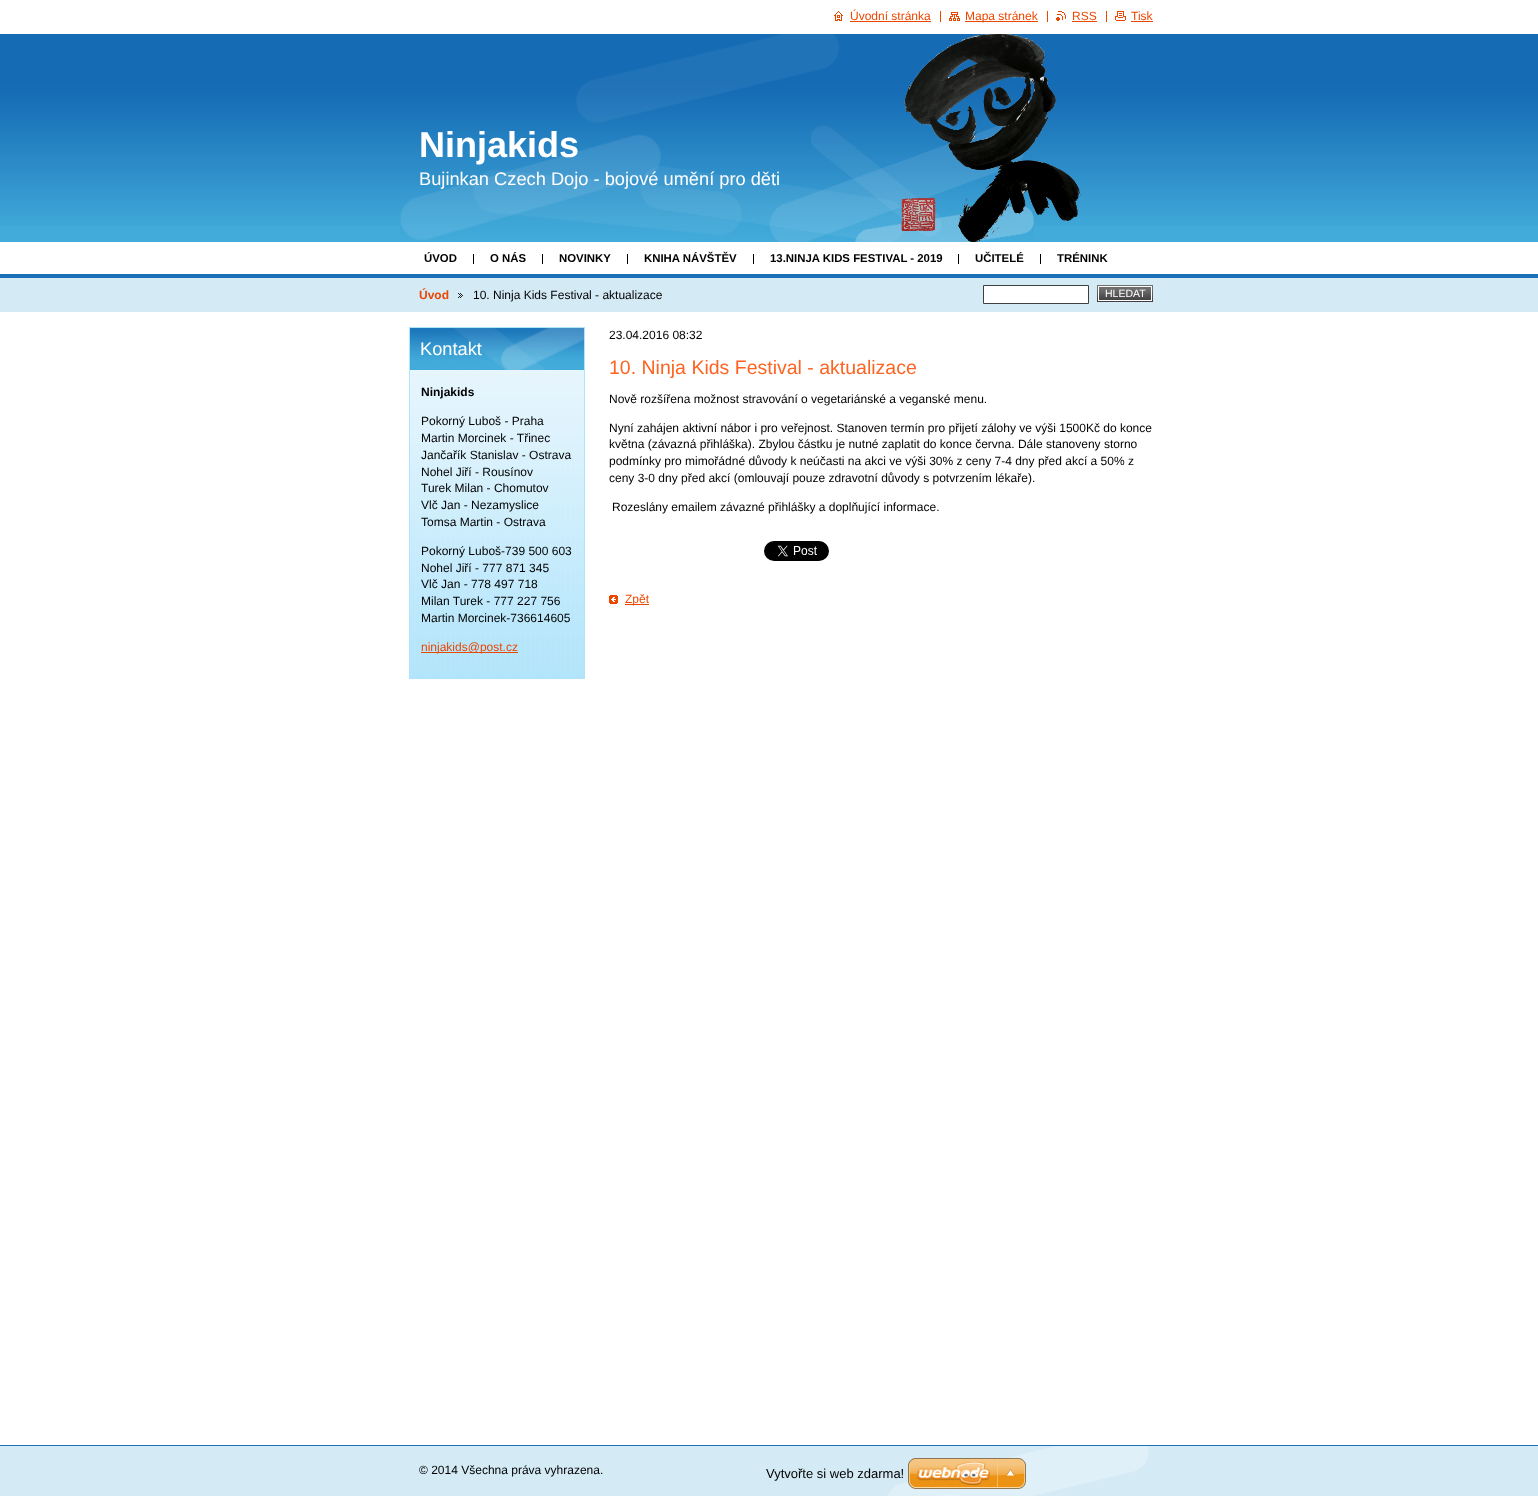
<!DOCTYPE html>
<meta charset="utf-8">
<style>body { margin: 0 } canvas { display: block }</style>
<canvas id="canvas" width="1538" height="1496"></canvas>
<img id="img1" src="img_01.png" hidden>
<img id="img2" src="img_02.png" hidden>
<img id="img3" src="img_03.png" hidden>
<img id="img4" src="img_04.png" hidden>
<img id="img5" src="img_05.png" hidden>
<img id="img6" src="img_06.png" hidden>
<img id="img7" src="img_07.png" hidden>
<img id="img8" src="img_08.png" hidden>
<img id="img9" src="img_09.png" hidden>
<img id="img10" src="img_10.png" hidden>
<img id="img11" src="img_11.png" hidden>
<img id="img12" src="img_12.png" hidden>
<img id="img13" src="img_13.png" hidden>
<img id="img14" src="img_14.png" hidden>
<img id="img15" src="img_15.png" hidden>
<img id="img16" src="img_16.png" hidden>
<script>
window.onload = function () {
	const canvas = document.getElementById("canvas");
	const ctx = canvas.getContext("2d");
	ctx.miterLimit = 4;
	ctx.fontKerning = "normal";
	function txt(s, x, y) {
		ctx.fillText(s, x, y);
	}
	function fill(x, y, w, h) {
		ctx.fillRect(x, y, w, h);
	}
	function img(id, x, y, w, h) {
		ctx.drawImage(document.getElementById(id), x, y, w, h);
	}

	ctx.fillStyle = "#FFFFFF";
	fill(0, 0, 1538, 1496);
	img("img1", 834, 11, 9, 10);
	ctx.fillStyle = "#EC4700";
	fill(850, 21, 81, 1);
	img("img2", 949, 12, 11, 9);
	ctx.fillStyle = "#E84B00";
	fill(940, 11, 1, 11);
	ctx.fillStyle = "#EC4700";
	fill(965, 21, 73, 1);
	img("img3", 1056, 11, 10, 10);
	ctx.fillStyle = "#E84B00";
	fill(1047, 11, 1, 11);
	ctx.fillStyle = "#EC4700";
	fill(1072, 21, 25, 1);
	img("img4", 1115, 11, 11, 10);
	ctx.fillStyle = "#E84B00";
	fill(1106, 11, 1, 11);
	ctx.fillStyle = "#EC4700";
	fill(1131, 21, 22, 1);
	ctx.fillStyle = "#42ABDA";
	fill(0, 226, 1538, 16);
	img("img5", 0, 34, 1538, 192);
	img("img6", 400, 34, 634, 208);
	img("img7", 901, 34, 180, 208);
	ctx.fillStyle = "#000000";
	fill(473, 254, 1, 10);
	fill(542, 254, 1, 10);
	fill(627, 254, 1, 10);
	fill(753, 254, 1, 10);
	fill(958, 254, 1, 10);
	fill(1040, 254, 1, 10);
	ctx.fillStyle = "#D4EAF5";
	fill(0, 278, 1538, 34);
	ctx.fillStyle = "#1C70B7";
	fill(0, 274, 1538, 4);
	img("img8", 458, 293, 5, 5);
	ctx.fillStyle = "#FFFFFF";
	ctx.beginPath();
	ctx.rect(983.5, 285.5, 105, 18);
	ctx.fill();
	ctx.strokeStyle = "#404040";
	ctx.stroke();
	ctx.fillStyle = "#404040";
	fill(1097, 300, 56, 2);
	img("img9", 1097, 285, 56, 15);
	img("img10", 1099, 287, 52, 13);
	ctx.strokeStyle = "#FFFFFF";
	ctx.strokeRect(1098.5, 286.5, 53, 14);
	img("img11", 410, 370, 174, 308);
	ctx.strokeStyle = "#B1E4FB";
	ctx.strokeRect(409.5, 327.5, 175, 351);
	img("img12", 410, 328, 174, 42);
	ctx.fillStyle = "#EC4700";
	fill(421, 652, 97, 1);
	img("img13", 764, 541, 65, 20);
	img("img14", 609, 595, 9, 9);
	fill(625, 604, 24, 1);
	ctx.fillStyle = "#D4EAF5";
	fill(0, 1446, 1538, 50);
	ctx.fillStyle = "#1C70B7";
	fill(0, 1445, 1538, 1);
	img("img15", 888, 1446, 261, 50);
	img("img16", 908, 1458, 118, 31);
	ctx.font = "12px Liberation Sans";
	ctx.fillStyle = "#EC4700";
	txt("Úvodní stránka", 850, 20);
	txt("Mapa stránek", 965, 20);
	txt("RSS", 1072, 20);
	txt("Tisk", 1131, 20);
	ctx.font = "bold 36px Liberation Sans";
	ctx.fillStyle = "#FFFFFF";
	txt("Ninjakids", 419, 157);
	ctx.font = "18.25px Liberation Sans";
	txt("Bujinkan Czech Dojo - bojové umění pro děti", 419, 185);
	ctx.font = "bold 11.4px Liberation Sans";
	ctx.fillStyle = "#000000";
	txt("ÚVOD", 424, 262);
	txt("O NÁS", 490, 262);
	txt("NOVINKY", 559, 262);
	txt("KNIHA NÁVŠTĚV", 644, 262);
	txt("13.NINJA KIDS FESTIVAL - 2019", 770, 262);
	txt("UČITELÉ", 975, 262);
	txt("TRÉNINK", 1057, 262);
	ctx.font = "bold 12px Liberation Sans";
	ctx.fillStyle = "#EC4700";
	txt("Úvod", 419, 299);
	ctx.font = "12px Liberation Sans";
	ctx.fillStyle = "#000000";
	txt("10. Ninja Kids Festival - aktualizace", 473, 299);
	ctx.font = "10.5px Liberation Sans";
	ctx.fillStyle = "#FFFFFF";
	txt("HLEDAT", 1105, 297);
	ctx.font = "18.25px Liberation Sans";
	txt("Kontakt", 420, 355);
	ctx.font = "bold 12px Liberation Sans";
	ctx.fillStyle = "#000000";
	txt("Ninjakids", 421, 396);
	ctx.font = "12px Liberation Sans";
	txt("Pokorný Luboš - Praha", 421, 425);
	txt("Martin Morcinek - Třinec", 421, 442);
	txt("Jančařík Stanislav - Ostrava", 421, 459);
	txt("Nohel Jiří - Rousínov", 421, 476);
	txt("Turek Milan - Chomutov", 421, 492);
	txt("Vlč Jan - Nezamyslice", 421, 509);
	txt("Tomsa Martin - Ostrava", 421, 526);
	txt("Pokorný Luboš-739 500 603", 421, 555);
	txt("Nohel Jiří - 777 871 345", 421, 572);
	txt("Vlč Jan - 778 497 718", 421, 588);
	txt("Milan Turek - 777 227 756", 421, 605);
	txt("Martin Morcinek-736614605", 421, 622);
	ctx.fillStyle = "#EC4700";
	txt("ninjakids@post.cz", 421, 651);
	ctx.fillStyle = "#000000";
	txt("23.04.2016 08:32", 609, 339);
	ctx.font = "19.5px Liberation Sans";
	ctx.fillStyle = "#FD6422";
	txt("10. Ninja Kids Festival - aktualizace", 609, 374);
	ctx.font = "12px Liberation Sans";
	ctx.fillStyle = "#000000";
	txt("Nově rozšířena možnost stravování o vegetariánské a veganské menu.", 609, 403);
	txt("Nyní zahájen aktivní nábor i pro veřejnost. Stanoven termín pro přijetí zálohy ve výši 1500Kč do konce", 609, 432);
	txt("května (závazná přihláška). Zbylou částku je nutné zaplatit do konce června. Dále stanoveny storno", 609, 448);
	txt("podmínky pro mimořádné důvody k neúčasti na akci ve výši 30% z ceny 7-4 dny před akcí a 50% z", 609, 465);
	txt("ceny 3-0 dny před akcí (omlouvají pouze zdravotní důvody s potvrzením lékaře).", 609, 482);
	txt("Rozeslány emailem závazné přihlášky a doplňující informace.", 612, 511);
	ctx.fillStyle = "#EC4700";
	txt("Zpět", 625, 603);
	ctx.fillStyle = "#000000";
	txt("© 2014 Všechna práva vyhrazena.", 419, 1474);
	ctx.font = "13px Liberation Sans";
	txt("Vytvořte si web zdarma!", 766, 1478);
};
</script>
